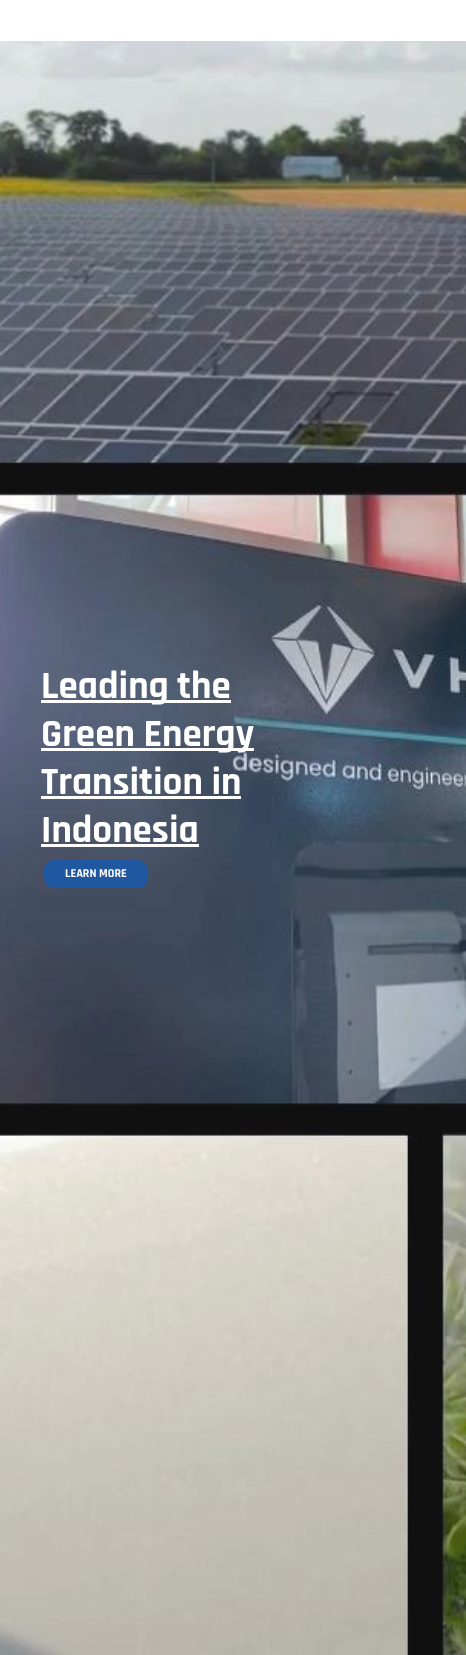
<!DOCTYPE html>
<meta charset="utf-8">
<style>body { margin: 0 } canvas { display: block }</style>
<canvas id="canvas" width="466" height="1655"></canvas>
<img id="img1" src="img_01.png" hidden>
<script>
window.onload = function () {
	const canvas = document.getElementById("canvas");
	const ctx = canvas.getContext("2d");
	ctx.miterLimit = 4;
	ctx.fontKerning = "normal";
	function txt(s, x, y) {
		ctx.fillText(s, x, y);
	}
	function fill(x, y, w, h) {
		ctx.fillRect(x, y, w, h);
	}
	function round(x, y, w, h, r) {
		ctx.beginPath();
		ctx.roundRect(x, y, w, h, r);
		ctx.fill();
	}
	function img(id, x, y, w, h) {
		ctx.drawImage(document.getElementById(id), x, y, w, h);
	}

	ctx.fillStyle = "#FFFFFF";
	fill(0, 0, 466, 1655);
	img("img1", 0, 41, 466, 1614);
	fill(41, 700, 190, 3);
	fill(41, 748, 213, 3);
	fill(41, 796, 200, 3);
	fill(41, 844, 158, 3);
	ctx.fillStyle = "#1F58A0";
	round(44, 860, 104, 28, 10);
	ctx.font = "bold 39px Rajdhani";
	ctx.fillStyle = "#FFFFFF";
	txt("Leading the", 41, 698);
	txt("Green Energy", 41, 746);
	txt("Transition in", 41, 794);
	txt("Indonesia", 41, 842);
	ctx.font = "bold 12px Rajdhani";
	txt("LEARN MORE", 65, 877);
};
</script>
